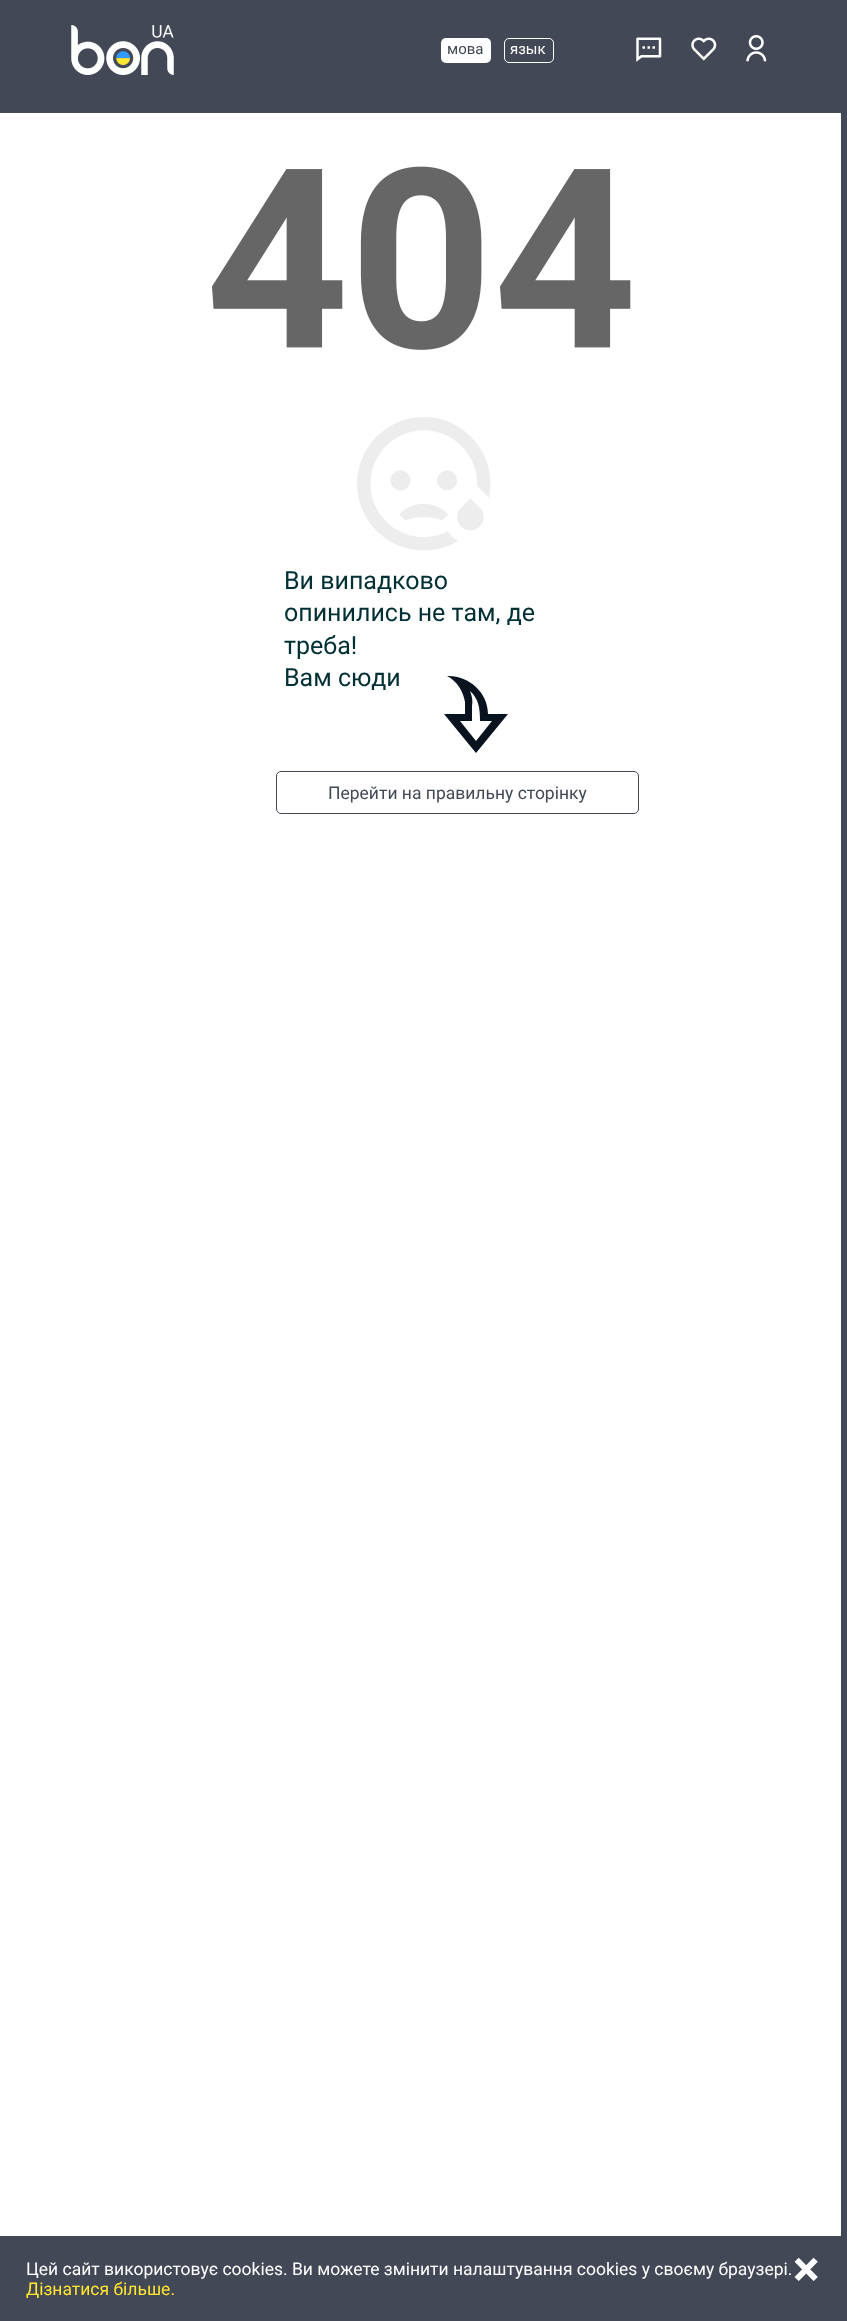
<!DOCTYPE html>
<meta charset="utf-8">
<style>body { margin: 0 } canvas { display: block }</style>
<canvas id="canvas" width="847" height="2321"></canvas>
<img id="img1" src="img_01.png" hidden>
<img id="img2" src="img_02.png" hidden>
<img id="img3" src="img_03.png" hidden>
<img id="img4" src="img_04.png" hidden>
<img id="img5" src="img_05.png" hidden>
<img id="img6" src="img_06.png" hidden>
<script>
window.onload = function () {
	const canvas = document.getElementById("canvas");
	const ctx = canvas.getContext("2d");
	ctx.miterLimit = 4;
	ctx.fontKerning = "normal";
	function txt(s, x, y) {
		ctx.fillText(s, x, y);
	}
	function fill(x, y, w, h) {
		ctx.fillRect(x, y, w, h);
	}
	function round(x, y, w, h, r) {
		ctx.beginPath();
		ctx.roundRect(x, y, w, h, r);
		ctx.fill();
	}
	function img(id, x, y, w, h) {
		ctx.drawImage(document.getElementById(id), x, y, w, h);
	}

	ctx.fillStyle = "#434856";
	fill(0, 0, 847, 2321);
	ctx.fillStyle = "#FFFFFF";
	fill(0, 113, 841, 2123);
	img("img1", 71, 25, 103, 50);
	round(441, 38, 50, 25, 5);
	ctx.beginPath();
	ctx.roundRect(504.5, 38.5, 49, 24, 4.5);
	ctx.strokeStyle = "#FFFFFF";
	ctx.stroke();
	img("img2", 636, 37, 26, 25);
	img("img3", 691, 37, 26, 24);
	img("img4", 746, 35, 21, 27);
	img("img5", 212, 166, 419, 184);
	img("img6", 357, 417, 134, 134);
	ctx.fillStyle = "#09121F";
	ctx.beginPath();
	ctx.moveTo(465, 714);
	ctx.lineTo(465, 702);
	ctx.bezierCurveTo(463, 691, 457, 681, 447, 676);
	ctx.bezierCurveTo(468, 675, 488, 692, 488, 714);
	ctx.lineTo(508, 714);
	ctx.lineTo(476, 753);
	ctx.lineTo(444, 714);
	ctx.closePath();
	ctx.moveTo(472, 706);
	ctx.lineTo(472, 721);
	ctx.lineTo(460, 721);
	ctx.lineTo(476, 741);
	ctx.lineTo(492, 721);
	ctx.lineTo(480, 721);
	ctx.bezierCurveTo(480, 709, 479, 699, 470, 691);
	ctx.bezierCurveTo(472, 696, 473, 701, 472, 706);
	ctx.closePath();
	ctx.fill();
	ctx.beginPath();
	ctx.roundRect(276.5, 771.5, 362, 42, 4.5);
	ctx.strokeStyle = "#434856";
	ctx.stroke();
	ctx.font = "15px Roboto";
	ctx.fillStyle = "#434856";
	txt("мова", 447, 54);
	ctx.fillStyle = "#FFFFFF";
	txt("язык", 510, 54);
	ctx.font = "25px Roboto";
	ctx.fillStyle = "#002F34";
	txt("Ви випадково", 284, 589);
	txt("опинились не там, де", 284, 621);
	txt("треба!", 284, 654);
	txt("Вам сюди", 284, 686);
	ctx.font = "17.5px Roboto";
	ctx.fillStyle = "#434856";
	txt("Перейти на правильну сторінку", 328, 799);
	ctx.fillStyle = "#FFFFFF";
	txt("Цей сайт використовує cookies. Ви можете змінити налаштування cookies у своєму браузері.", 26, 2275);
	ctx.fillStyle = "#FFE630";
	txt("Дізнатися більше.", 26, 2295);
	ctx.font = "bold 50px Roboto";
	ctx.fillStyle = "#FFFFFF";
	txt("×", 793, 2286);
};
</script>
